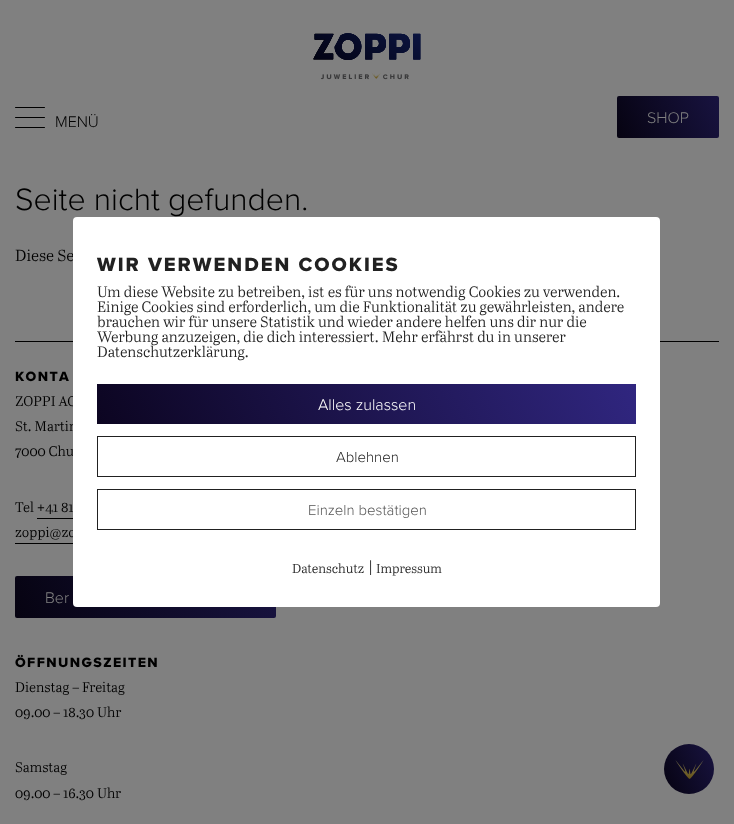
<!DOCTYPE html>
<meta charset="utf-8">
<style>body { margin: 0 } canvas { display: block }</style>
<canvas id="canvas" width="734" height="824"></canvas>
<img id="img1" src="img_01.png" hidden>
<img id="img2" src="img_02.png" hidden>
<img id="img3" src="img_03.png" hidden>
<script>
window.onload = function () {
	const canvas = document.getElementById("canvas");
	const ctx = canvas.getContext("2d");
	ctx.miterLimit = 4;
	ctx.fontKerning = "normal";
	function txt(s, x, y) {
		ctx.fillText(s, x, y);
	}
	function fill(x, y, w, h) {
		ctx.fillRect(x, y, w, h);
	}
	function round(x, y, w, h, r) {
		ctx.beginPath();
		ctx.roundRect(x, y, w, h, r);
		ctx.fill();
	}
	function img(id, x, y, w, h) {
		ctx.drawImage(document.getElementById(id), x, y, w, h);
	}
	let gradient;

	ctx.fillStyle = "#808080";
	fill(0, 0, 734, 824);
	img("img1", 313, 33, 108, 47);
	img("img2", 313, 33, 108, 27);
	ctx.fillStyle = "#000000";
	round(15, 117, 30, 1, 0.5);
	round(15, 107, 30, 1, 0.5);
	round(15, 127, 30, 1, 0.5);
	gradient = ctx.createLinearGradient(718, 94, 618, 140);
	gradient.addColorStop(0, "#181340");
	gradient.addColorStop(1, "#060311");
	ctx.fillStyle = gradient;
	round(617, 96, 102, 42, 2);
	ctx.fillStyle = "#000000";
	fill(15, 341, 704, 1);
	fill(37, 518, 36, 1);
	fill(15, 543, 58, 1);
	gradient = ctx.createLinearGradient(261, 543, 30, 651);
	gradient.addColorStop(0, "#181340");
	gradient.addColorStop(1, "#060311");
	ctx.fillStyle = gradient;
	round(15, 576, 261, 42, 2);
	gradient = ctx.createLinearGradient(719, 755, 659, 783);
	gradient.addColorStop(0, "#181340");
	gradient.addColorStop(1, "#060311");
	ctx.fillStyle = gradient;
	ctx.beginPath();
	ctx.arc(689, 769, 25, 0, Math.PI * 2);
	ctx.fill();
	img("img3", 675, 760, 29, 19);
	ctx.font = "16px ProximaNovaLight";
	ctx.fillStyle = "#000000";
	txt("MENÜ", 55, 127);
	ctx.fillStyle = "#808080";
	txt("SHOP", 647, 123);
	ctx.font = "32px ProximaNovaLight";
	ctx.fillStyle = "#000000";
	txt("Seite nicht gefunden.", 15, 210);
	ctx.font = "16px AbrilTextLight";
	txt("Diese Se", 15, 261);
	ctx.letterSpacing = "1.4px";
	ctx.font = "14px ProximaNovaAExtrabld";
	txt("KONTA", 15, 381);
	ctx.letterSpacing = "0px";
	ctx.font = "14px AbrilTextLight";
	txt("ZOPPI AG", 15, 406);
	txt("St. Martin", 15, 431);
	txt("7000 Chu", 15, 456);
	txt("Tel +41 81", 15, 512);
	txt("zoppi@zo", 15, 537);
	ctx.font = "16px ProximaNovaLight";
	ctx.fillStyle = "#808080";
	txt("Ber", 45, 603);
	ctx.letterSpacing = "1.4px";
	ctx.font = "14px ProximaNovaAExtrabld";
	ctx.fillStyle = "#000000";
	txt("ÖFFNUNGSZEITEN", 15, 667);
	ctx.letterSpacing = "0px";
	ctx.font = "14px AbrilTextLight";
	txt("Dienstag – Freitag", 15, 692);
	txt("09.00 – 18.30 Uhr", 15, 717);
	txt("Samstag", 15, 772);
	txt("09.00 – 16.30 Uhr", 15, 798);
	ctx.fillStyle = "#FFFFFF";
	round(73, 217, 587, 390, 4);
	ctx.letterSpacing = "2px";
	ctx.font = "20px ProximaNovaAExtrabld";
	ctx.fillStyle = "#212121";
	txt("WIR VERWENDEN COOKIES", 97, 271);
	ctx.letterSpacing = "0px";
	ctx.font = "15px AbrilTextLight";
	txt("Um diese Website zu betreiben, ist es für uns notwendig Cookies zu verwenden.", 97, 297);
	txt("Einige Cookies sind erforderlich, um die Funktionalität zu gewährleisten, andere", 97, 312);
	txt("brauchen wir für unsere Statistik und wieder andere helfen uns dir nur die", 97, 327);
	txt("Werbung anzuzeigen, die dich interessiert. Mehr erfährst du in unserer", 97, 342);
	txt("Datenschutzerklärung.", 97, 357);
	gradient = ctx.createLinearGradient(596, 297, 138, 511);
	gradient.addColorStop(0, "#302680");
	gradient.addColorStop(1, "#0C0521");
	ctx.fillStyle = gradient;
	fill(97, 384, 539, 40);
	ctx.font = "16px ProximaNovaLight";
	ctx.fillStyle = "#FFFFFF";
	txt("Alles zulassen", 318, 410);
	ctx.strokeStyle = "#212121";
	ctx.strokeRect(97.5, 436.5, 538, 40);
	ctx.font = "15px ProximaNovaLight";
	ctx.fillStyle = "#212121";
	txt("Ablehnen", 336, 462);
	ctx.strokeRect(97.5, 489.5, 538, 40);
	ctx.fillStyle = "#555555";
	txt("Einzeln bestätigen", 308, 515);
	ctx.font = "13px AbrilTextLight";
	ctx.fillStyle = "#212121";
	txt("Datenschutz", 292, 573);
	ctx.font = "16px AbrilTextLight";
	txt("|", 368, 573);
	ctx.font = "13px AbrilTextLight";
	txt("Impressum", 376, 573);
};
</script>
